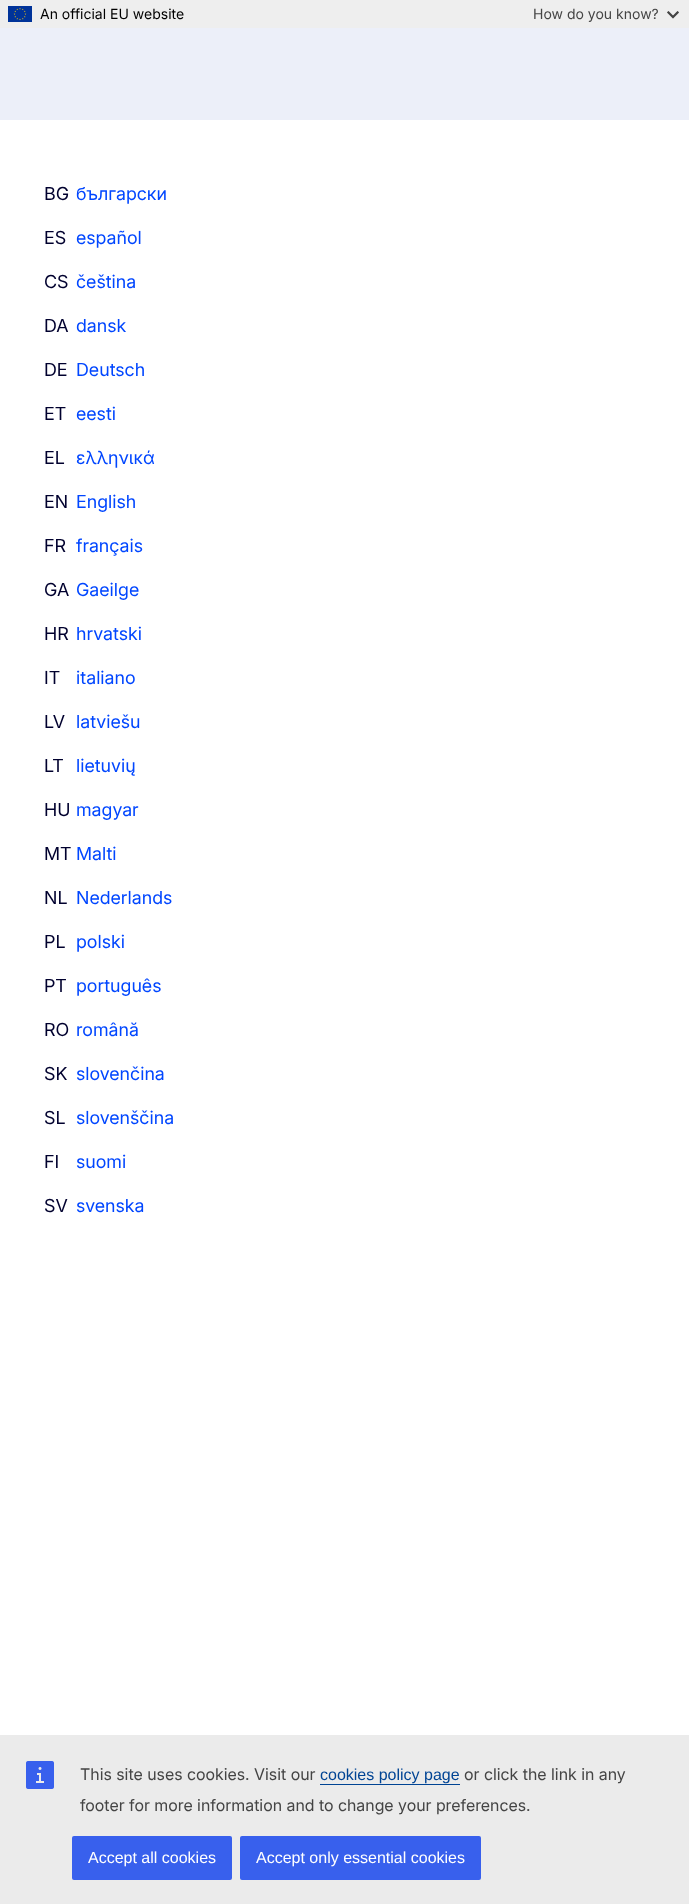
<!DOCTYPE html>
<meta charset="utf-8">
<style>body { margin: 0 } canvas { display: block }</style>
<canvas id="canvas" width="689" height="1904"></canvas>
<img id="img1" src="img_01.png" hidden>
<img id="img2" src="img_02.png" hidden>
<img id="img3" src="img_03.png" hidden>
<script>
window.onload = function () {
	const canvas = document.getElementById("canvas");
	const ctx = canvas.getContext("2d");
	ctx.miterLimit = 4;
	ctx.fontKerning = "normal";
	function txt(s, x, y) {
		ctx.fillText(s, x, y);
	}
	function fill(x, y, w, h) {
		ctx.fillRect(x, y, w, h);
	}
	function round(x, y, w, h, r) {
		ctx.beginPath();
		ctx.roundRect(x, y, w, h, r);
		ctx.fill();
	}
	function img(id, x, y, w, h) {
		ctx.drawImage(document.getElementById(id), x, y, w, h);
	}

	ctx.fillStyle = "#FFFFFF";
	fill(0, 0, 689, 1904);
	ctx.fillStyle = "#EEEEEE";
	fill(0, 0, 689, 28);
	img("img1", 8, 6, 24, 16);
	img("img2", 667, 11, 12, 8);
	ctx.fillStyle = "#ECEFF9";
	fill(0, 28, 689, 92);
	ctx.fillStyle = "#EBEBEB";
	fill(0, 1735, 689, 169);
	img("img3", 26, 1761, 28, 28);
	ctx.fillStyle = "#004494";
	fill(320, 1784, 140, 1);
	ctx.fillStyle = "#3860ED";
	round(72, 1836, 160, 44, 2);
	round(240, 1836, 241, 44, 2);
	ctx.font = "14px Inter";
	ctx.fillStyle = "#000000";
	txt("An official EU website", 40, 19);
	ctx.fillStyle = "#444444";
	txt("How do you know?", 533, 19);
	ctx.font = "18px Inter";
	ctx.fillStyle = "#00002E";
	txt("BG", 44, 200);
	ctx.font = "18px 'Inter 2'";
	ctx.fillStyle = "#0046FF";
	txt("български", 76, 200);
	ctx.fillStyle = "#00002E";
	txt("ES", 44, 244);
	ctx.fillStyle = "#0046FF";
	txt("español", 76, 244);
	ctx.fillStyle = "#00002E";
	txt("CS", 44, 288);
	ctx.fillStyle = "#0046FF";
	txt("čeština", 76, 288);
	ctx.fillStyle = "#00002E";
	txt("DA", 44, 332);
	ctx.fillStyle = "#0046FF";
	txt("dansk", 76, 332);
	ctx.fillStyle = "#00002E";
	txt("DE", 44, 376);
	ctx.fillStyle = "#0046FF";
	txt("Deutsch", 76, 376);
	ctx.fillStyle = "#00002E";
	txt("ET", 44, 420);
	ctx.fillStyle = "#0046FF";
	txt("eesti", 76, 420);
	ctx.fillStyle = "#00002E";
	txt("EL", 44, 464);
	ctx.fillStyle = "#0046FF";
	txt("ελληνικά", 76, 464);
	ctx.fillStyle = "#00002E";
	txt("EN", 44, 508);
	ctx.fillStyle = "#0046FF";
	txt("English", 76, 508);
	ctx.fillStyle = "#00002E";
	txt("FR", 44, 552);
	ctx.fillStyle = "#0046FF";
	txt("français", 76, 552);
	ctx.fillStyle = "#00002E";
	txt("GA", 44, 596);
	ctx.fillStyle = "#0046FF";
	txt("Gaeilge", 76, 596);
	ctx.fillStyle = "#00002E";
	txt("HR", 44, 640);
	ctx.fillStyle = "#0046FF";
	txt("hrvatski", 76, 640);
	ctx.fillStyle = "#00002E";
	txt("IT", 44, 684);
	ctx.fillStyle = "#0046FF";
	txt("italiano", 76, 684);
	ctx.fillStyle = "#00002E";
	txt("LV", 44, 728);
	ctx.fillStyle = "#0046FF";
	txt("latviešu", 76, 728);
	ctx.fillStyle = "#00002E";
	txt("LT", 44, 772);
	ctx.fillStyle = "#0046FF";
	txt("lietuvių", 76, 772);
	ctx.fillStyle = "#00002E";
	txt("HU", 44, 816);
	ctx.fillStyle = "#0046FF";
	txt("magyar", 76, 816);
	ctx.fillStyle = "#00002E";
	txt("MT", 44, 860);
	ctx.fillStyle = "#0046FF";
	txt("Malti", 76, 860);
	ctx.fillStyle = "#00002E";
	txt("NL", 44, 904);
	ctx.fillStyle = "#0046FF";
	txt("Nederlands", 76, 904);
	ctx.fillStyle = "#00002E";
	txt("PL", 44, 948);
	ctx.fillStyle = "#0046FF";
	txt("polski", 76, 948);
	ctx.fillStyle = "#00002E";
	txt("PT", 44, 992);
	ctx.fillStyle = "#0046FF";
	txt("português", 76, 992);
	ctx.fillStyle = "#00002E";
	txt("RO", 44, 1036);
	ctx.fillStyle = "#0046FF";
	txt("română", 76, 1036);
	ctx.fillStyle = "#00002E";
	txt("SK", 44, 1080);
	ctx.fillStyle = "#0046FF";
	txt("slovenčina", 76, 1080);
	ctx.fillStyle = "#00002E";
	txt("SL", 44, 1124);
	ctx.fillStyle = "#0046FF";
	txt("slovenščina", 76, 1124);
	ctx.fillStyle = "#00002E";
	txt("FI", 44, 1168);
	ctx.fillStyle = "#0046FF";
	txt("suomi", 76, 1168);
	ctx.fillStyle = "#00002E";
	txt("SV", 44, 1212);
	ctx.fillStyle = "#0046FF";
	txt("svenska", 76, 1212);
	ctx.font = "16px 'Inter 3'";
	ctx.fillStyle = "#444444";
	txt("This site uses cookies. Visit our", 80, 1780);
	ctx.font = "16px Liberation Sans";
	ctx.fillStyle = "#004494";
	txt("cookies policy page", 320, 1780);
	ctx.font = "16px 'Inter 3'";
	ctx.fillStyle = "#444444";
	txt("or click the link in any", 464, 1780);
	txt("footer for more information and to change your preferences.", 80, 1811);
	ctx.font = "16px Liberation Sans";
	ctx.fillStyle = "#FFFFFF";
	txt("Accept all cookies", 88, 1863);
	txt("Accept only essential cookies", 256, 1863);
};
</script>
